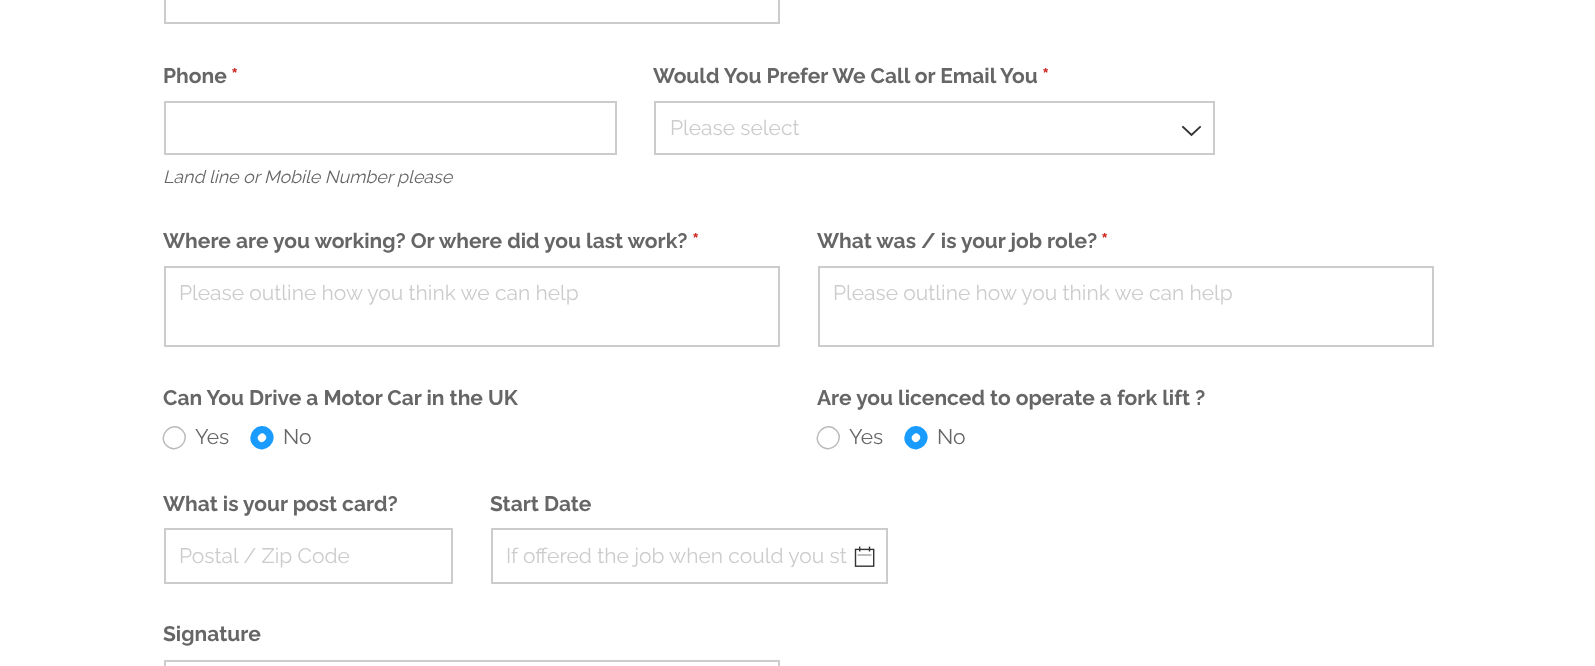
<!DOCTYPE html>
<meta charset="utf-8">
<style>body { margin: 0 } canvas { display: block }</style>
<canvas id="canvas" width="1595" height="666"></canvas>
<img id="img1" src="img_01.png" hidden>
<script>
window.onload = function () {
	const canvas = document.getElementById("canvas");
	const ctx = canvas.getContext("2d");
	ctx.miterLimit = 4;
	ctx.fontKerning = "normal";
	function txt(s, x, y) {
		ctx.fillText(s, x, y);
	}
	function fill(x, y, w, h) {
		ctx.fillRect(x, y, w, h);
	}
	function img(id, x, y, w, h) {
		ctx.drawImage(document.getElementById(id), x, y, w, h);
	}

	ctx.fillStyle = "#FFFFFF";
	fill(0, 0, 1595, 666);
	ctx.strokeStyle = "#CCCCCC";
	ctx.lineWidth = 2;
	ctx.strokeRect(165, -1, 614, 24);
	ctx.strokeRect(165, 102, 451, 52);
	ctx.strokeRect(655, 102, 559, 52);
	ctx.beginPath();
	ctx.moveTo(1183, 127);
	ctx.lineTo(1191.5, 135);
	ctx.lineTo(1200, 127);
	ctx.strokeStyle = "#333333";
	ctx.lineWidth = 1.9;
	ctx.lineCap = "square";
	ctx.stroke();
	ctx.strokeStyle = "#CCCCCC";
	ctx.lineWidth = 2;
	ctx.strokeRect(165, 267, 614, 79);
	ctx.strokeRect(819, 267, 614, 79);
	ctx.beginPath();
	ctx.moveTo(182, 430);
	ctx.bezierCurveTo(192, 440, 176.5, 455.5, 166.5, 445.5);
	ctx.bezierCurveTo(156.5, 435.5, 172, 420, 182, 430);
	ctx.closePath();
	ctx.strokeStyle = "#BBBBBB";
	ctx.lineWidth = 1.5;
	ctx.lineCap = "butt";
	ctx.stroke();
	ctx.beginPath();
	ctx.moveTo(267.5, 432);
	ctx.bezierCurveTo(275, 439.5, 263.5, 450.5, 256.5, 443.5);
	ctx.bezierCurveTo(249, 436, 260, 425, 267.5, 432);
	ctx.closePath();
	ctx.strokeStyle = "#1A9CFF";
	ctx.lineWidth = 7.4;
	ctx.stroke();
	ctx.beginPath();
	ctx.moveTo(836, 430);
	ctx.bezierCurveTo(846, 440, 830.5, 455.5, 820.5, 445.5);
	ctx.bezierCurveTo(810.5, 435.5, 826, 420, 836, 430);
	ctx.closePath();
	ctx.strokeStyle = "#BBBBBB";
	ctx.lineWidth = 1.5;
	ctx.stroke();
	ctx.beginPath();
	ctx.moveTo(921.5, 432);
	ctx.bezierCurveTo(929, 439.5, 917.5, 450.5, 910.5, 443.5);
	ctx.bezierCurveTo(903, 436, 914, 425, 921.5, 432);
	ctx.closePath();
	ctx.strokeStyle = "#1A9CFF";
	ctx.lineWidth = 7.4;
	ctx.stroke();
	ctx.strokeStyle = "#CCCCCC";
	ctx.lineWidth = 2;
	ctx.strokeRect(165, 529, 287, 54);
	ctx.strokeRect(492, 529, 395, 54);
	img("img1", 854, 546, 21, 21);
	ctx.strokeRect(165, 661, 614, 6);
	ctx.font = "bold 21px Raleway";
	ctx.fillStyle = "#666666";
	txt("Phone", 163, 83);
	ctx.fillStyle = "#CC2A24";
	txt("*", 231, 83);
	ctx.font = "italic 17.8px Raleway";
	ctx.fillStyle = "#666666";
	txt("Land line or Mobile Number please", 163, 183);
	ctx.font = "bold 21px Raleway";
	txt("Would You Prefer We Call or Email You", 653, 83);
	ctx.fillStyle = "#CC2A24";
	txt("*", 1042, 83);
	ctx.font = "21px Raleway";
	ctx.fillStyle = "#CCCCCC";
	txt("Please select", 670, 135);
	ctx.font = "bold 21px Raleway";
	ctx.fillStyle = "#666666";
	txt("Where are you working? Or where did you last work?", 163, 248);
	ctx.fillStyle = "#CC2A24";
	txt("*", 692, 248);
	ctx.font = "21px Raleway";
	ctx.fillStyle = "#CCCCCC";
	txt("Please outline how you think we can help", 179, 300);
	ctx.font = "bold 21px Raleway";
	ctx.fillStyle = "#666666";
	txt("What was / is your job role?", 817, 248);
	ctx.fillStyle = "#CC2A24";
	txt("*", 1101, 248);
	ctx.font = "21px Raleway";
	ctx.fillStyle = "#CCCCCC";
	txt("Please outline how you think we can help", 833, 300);
	ctx.font = "bold 21px Raleway";
	ctx.fillStyle = "#666666";
	txt("Can You Drive a Motor Car in the UK", 163, 405);
	ctx.font = "21px Raleway";
	txt("Yes", 195, 444);
	txt("No", 283, 444);
	ctx.font = "bold 21px Raleway";
	txt("Are you licenced to operate a fork lift ?", 817, 405);
	ctx.font = "21px Raleway";
	txt("Yes", 849, 444);
	txt("No", 937, 444);
	ctx.font = "bold 21px Raleway";
	txt("What is your post card?", 163, 511);
	ctx.font = "21px Raleway";
	ctx.fillStyle = "#CCCCCC";
	txt("Postal / Zip Code", 179, 563);
	ctx.font = "bold 21px Raleway";
	ctx.fillStyle = "#666666";
	txt("Start Date", 490, 511);
	ctx.save();
	ctx.beginPath();
	ctx.rect(507, 543, 344, 24);
	ctx.clip();
	ctx.font = "21px Raleway";
	ctx.fillStyle = "#CCCCCC";
	txt("If offered the job when could you st", 506, 563);
	ctx.restore();
	txt("Signature", 163, 641);
};
</script>
